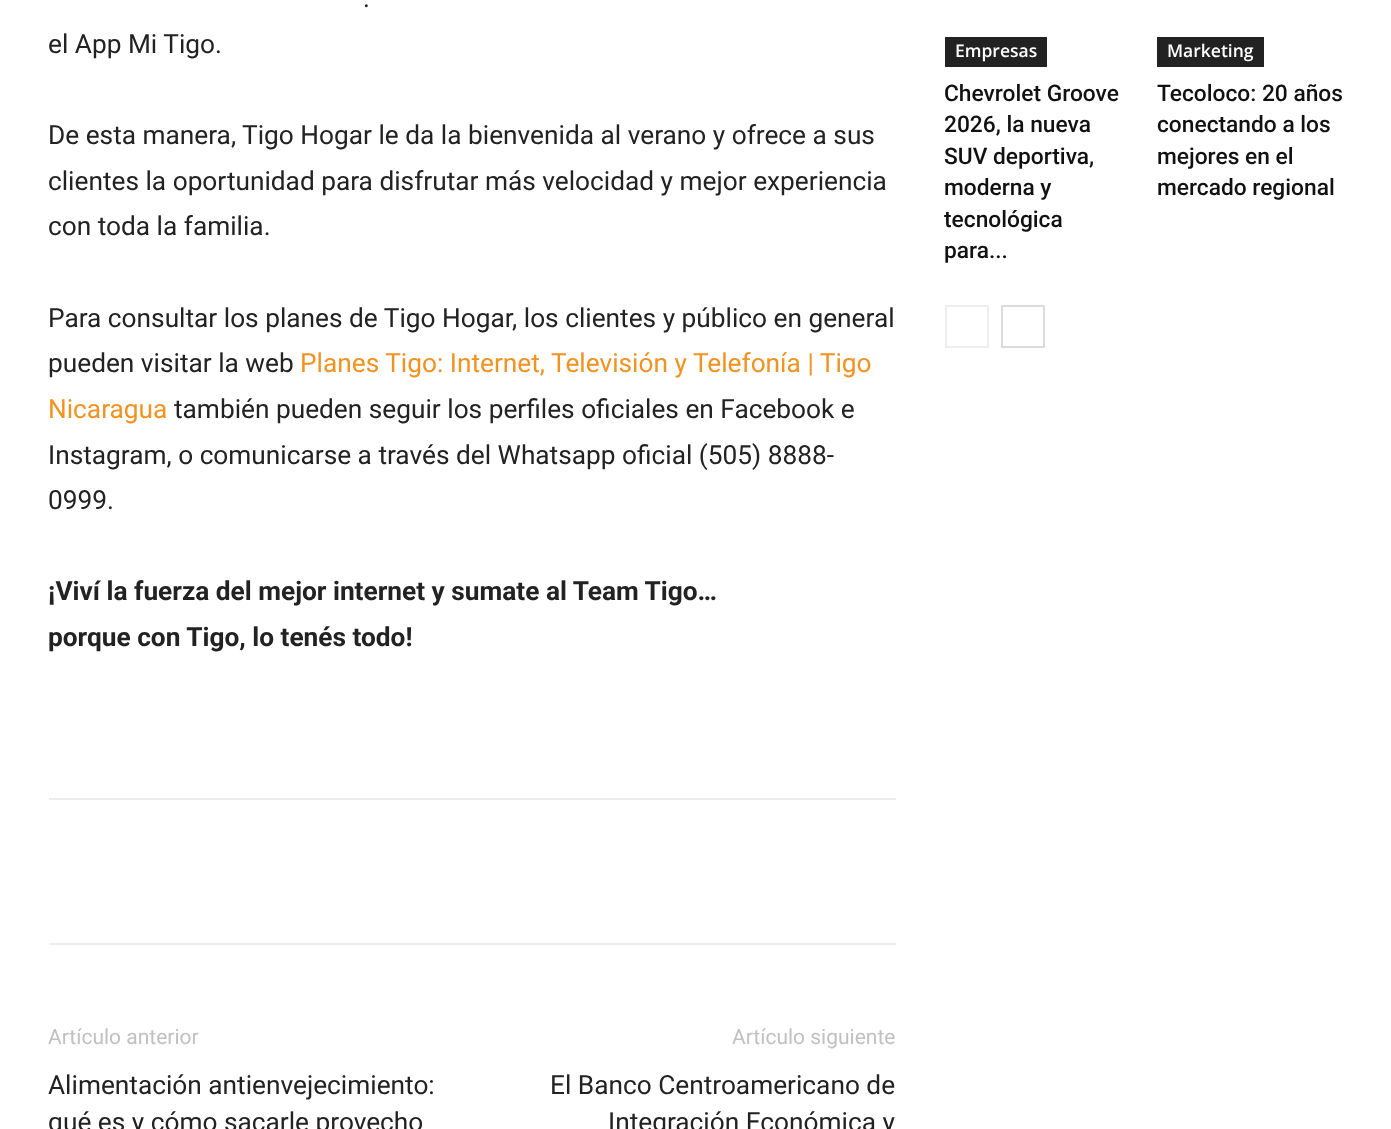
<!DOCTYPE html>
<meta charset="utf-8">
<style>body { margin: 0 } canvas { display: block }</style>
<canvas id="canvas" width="1391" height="1129"></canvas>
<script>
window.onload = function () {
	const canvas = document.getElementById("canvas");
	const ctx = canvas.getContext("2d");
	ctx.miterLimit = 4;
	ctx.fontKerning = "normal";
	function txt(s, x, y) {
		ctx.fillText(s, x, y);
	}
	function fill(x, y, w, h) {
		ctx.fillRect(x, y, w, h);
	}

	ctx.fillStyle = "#FFFFFF";
	fill(0, 0, 1391, 1129);
	ctx.fillStyle = "#EDEDED";
	fill(49, 798, 847, 2);
	fill(49, 943, 847, 2);
	ctx.fillStyle = "#222222";
	fill(945, 37, 102, 30);
	fill(1157, 37, 107, 30);
	ctx.strokeStyle = "#EEEEEE";
	ctx.lineWidth = 2;
	ctx.strokeRect(946, 306, 42, 41);
	ctx.strokeStyle = "#DCDCDC";
	ctx.strokeRect(1002, 306, 42, 41);
	ctx.font = "26.25px Roboto";
	txt(".", 363, 7);
	txt("el App Mi Tigo.", 48, 53);
	txt("De esta manera, Tigo Hogar le da la bienvenida al verano y ofrece a sus", 48, 144);
	txt("clientes la oportunidad para disfrutar más velocidad y mejor experiencia", 48, 190);
	txt("con toda la familia.", 48, 235);
	txt("Para consultar los planes de Tigo Hogar, los clientes y público en general", 48, 327);
	txt("pueden visitar la web", 48, 372);
	ctx.fillStyle = "#F29220";
	txt("Planes Tigo: Internet, Televisión y Telefonía | Tigo", 300, 372);
	txt("Nicaragua", 48, 418);
	ctx.fillStyle = "#222222";
	txt("también pueden seguir los perfiles oficiales en Facebook e", 174, 418);
	txt("Instagram, o comunicarse a través del Whatsapp oficial (505) 8888-", 48, 464);
	txt("0999.", 48, 509);
	ctx.font = "bold 26.25px Roboto";
	txt("¡Viví la fuerza del mejor internet y sumate al Team Tigo…", 48, 600);
	txt("porque con Tigo, lo tenés todo!", 48, 646);
	ctx.font = "21px Roboto";
	ctx.fillStyle = "#C1C1C1";
	txt("Artículo anterior", 48, 1044);
	ctx.font = "26.25px Roboto";
	ctx.fillStyle = "#222222";
	txt("Alimentación antienvejecimiento:", 48, 1094);
	txt("qué es y cómo sacarle provecho", 48, 1131);
	ctx.font = "21px Roboto";
	ctx.fillStyle = "#C1C1C1";
	txt("Artículo siguiente", 732, 1044);
	ctx.font = "26.25px Roboto";
	ctx.fillStyle = "#222222";
	txt("El Banco Centroamericano de", 550, 1094);
	txt("Integración Económica y", 608, 1131);
	ctx.font = "600 17.5px Open Sans";
	ctx.fillStyle = "#FFFFFF";
	txt("Empresas", 955, 57);
	ctx.font = "500 22.75px Roboto";
	ctx.fillStyle = "#111111";
	txt("Chevrolet Groove", 944, 101);
	txt("2026, la nueva", 944, 132);
	txt("SUV deportiva,", 944, 164);
	txt("moderna y", 944, 195);
	txt("tecnológica", 944, 227);
	txt("para...", 944, 258);
	ctx.font = "600 17.5px Open Sans";
	ctx.fillStyle = "#FFFFFF";
	txt("Marketing", 1167, 57);
	ctx.font = "500 22.75px Roboto";
	ctx.fillStyle = "#111111";
	txt("Tecoloco: 20 años", 1157, 101);
	txt("conectando a los", 1157, 132);
	txt("mejores en el", 1157, 164);
	txt("mercado regional", 1157, 195);
};
</script>
